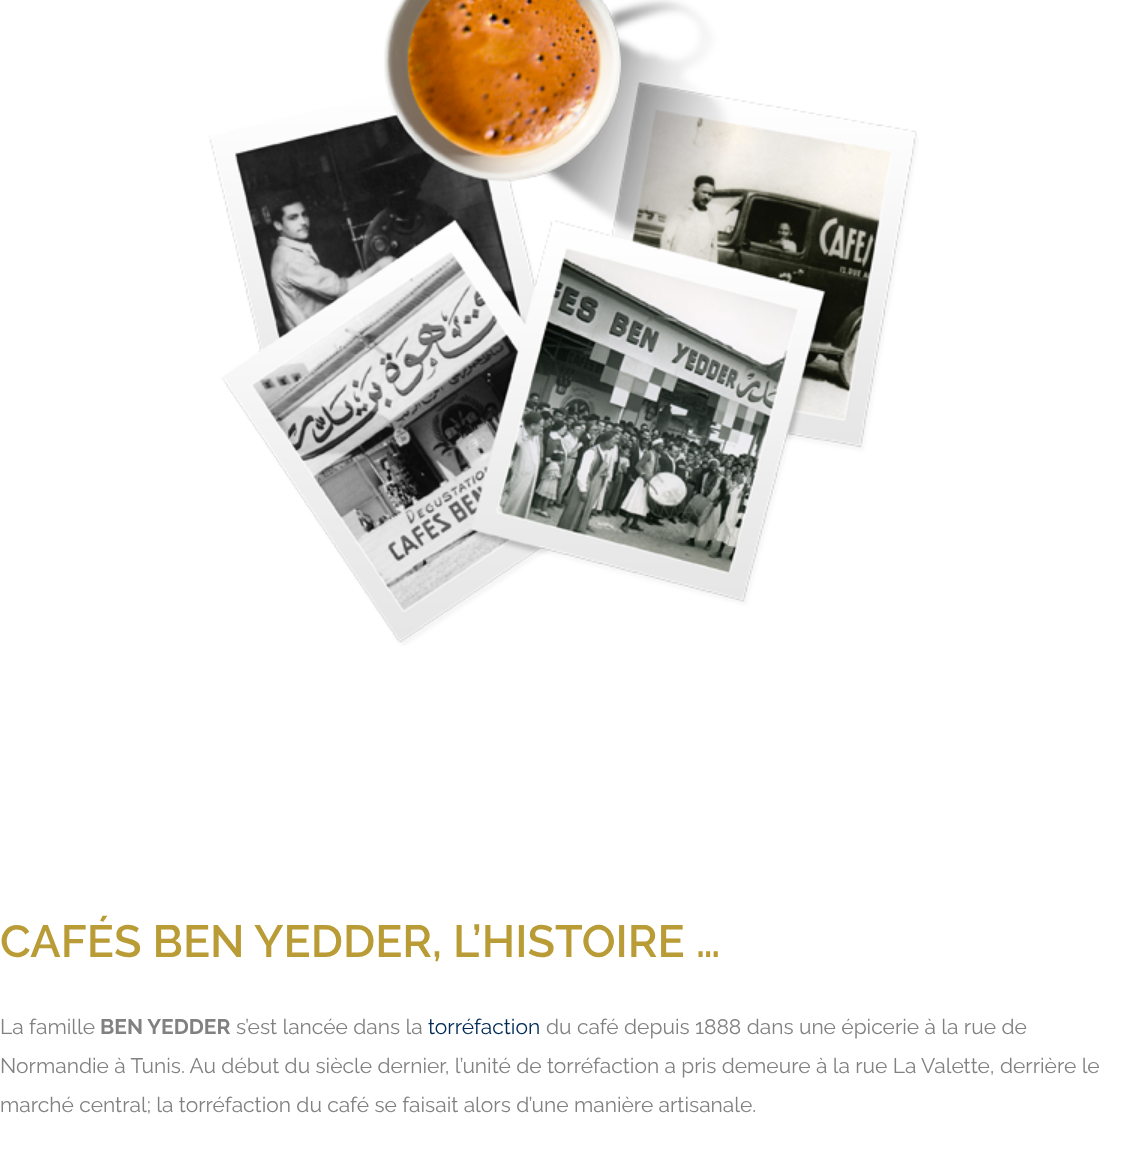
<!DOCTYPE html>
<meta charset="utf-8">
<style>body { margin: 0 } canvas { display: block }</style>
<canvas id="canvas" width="1131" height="1153"></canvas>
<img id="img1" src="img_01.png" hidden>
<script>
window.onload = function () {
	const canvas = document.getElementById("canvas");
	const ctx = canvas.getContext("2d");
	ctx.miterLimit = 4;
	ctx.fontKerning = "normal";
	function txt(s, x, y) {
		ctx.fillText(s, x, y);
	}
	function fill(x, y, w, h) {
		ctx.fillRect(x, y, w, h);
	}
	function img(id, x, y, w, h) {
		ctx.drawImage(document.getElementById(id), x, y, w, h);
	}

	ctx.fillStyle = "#FFFFFF";
	fill(0, 0, 1131, 1153);
	img("img1", 208, 0, 711, 646);
	ctx.font = "600 45px Raleway";
	ctx.fillStyle = "#B99C36";
	txt("CAFÉS BEN YEDDER, L’HISTOIRE …", 0, 957);
	ctx.font = "21px Raleway";
	ctx.fillStyle = "#818181";
	txt("La famille", 0, 1034);
	ctx.font = "bold 21px Raleway";
	txt("BEN YEDDER", 100, 1034);
	ctx.font = "21px Raleway";
	txt("s’est lancée dans la", 236, 1034);
	ctx.fillStyle = "#002A55";
	txt("torréfaction", 428, 1034);
	ctx.fillStyle = "#818181";
	txt("du café depuis 1888 dans une épicerie à la rue de", 546, 1034);
	txt("Normandie à Tunis. Au début du siècle dernier, l’unité de torréfaction a pris demeure à la rue La Valette, derrière le", 0, 1073);
	txt("marché central; la torréfaction du café se faisait alors d’une manière artisanale.", 0, 1112);
};
</script>
